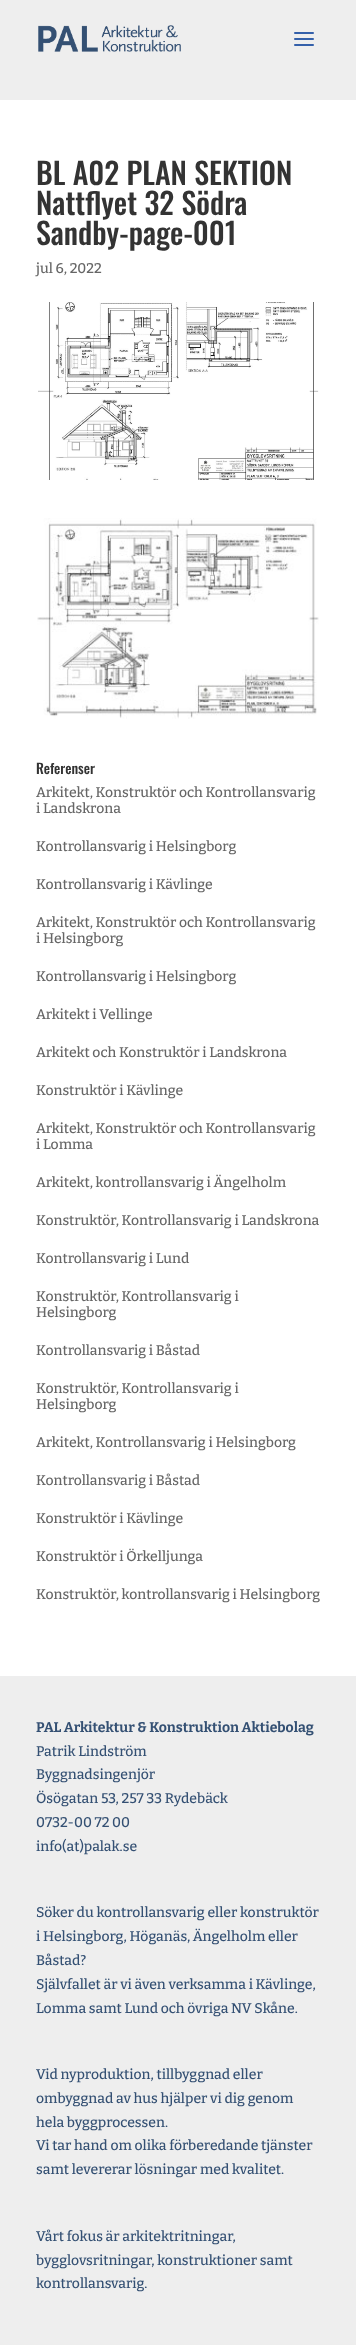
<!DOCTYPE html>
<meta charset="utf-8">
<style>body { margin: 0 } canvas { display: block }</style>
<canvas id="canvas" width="356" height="2345"></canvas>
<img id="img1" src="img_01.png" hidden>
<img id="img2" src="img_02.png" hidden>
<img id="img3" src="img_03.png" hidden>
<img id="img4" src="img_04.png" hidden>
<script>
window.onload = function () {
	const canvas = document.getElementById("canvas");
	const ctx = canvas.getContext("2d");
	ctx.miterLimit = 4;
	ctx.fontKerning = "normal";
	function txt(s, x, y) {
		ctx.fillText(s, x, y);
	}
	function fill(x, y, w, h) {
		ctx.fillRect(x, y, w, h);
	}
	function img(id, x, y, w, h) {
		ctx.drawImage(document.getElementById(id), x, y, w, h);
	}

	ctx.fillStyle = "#FFFFFF";
	fill(0, 0, 356, 2345);
	ctx.fillStyle = "#EEEEEE";
	fill(0, 0, 356, 100);
	img("img1", 38, 25, 143, 27);
	img("img2", 294, 32, 20, 14);
	img("img3", 38, 302, 281, 178);
	img("img4", 37, 518, 282, 201);
	fill(0, 1676, 356, 669);
	ctx.font = "500 30px Oswald";
	ctx.fillStyle = "#333333";
	txt("BL A02 PLAN SEKTION", 36, 185);
	txt("Nattflyet 32 Södra", 36, 215);
	txt("Sandby-page-001", 36, 245);
	ctx.font = "500 14px Bitter";
	ctx.fillStyle = "#666666";
	txt("jul 6, 2022", 36, 273);
	ctx.font = "500 14px Oswald";
	ctx.fillStyle = "#333333";
	txt("Referenser", 36, 774);
	ctx.font = "500 14px Bitter";
	ctx.fillStyle = "#666666";
	txt("Arkitekt, Konstruktör och Kontrollansvarig", 36, 797);
	txt("i Landskrona", 36, 813);
	txt("Kontrollansvarig i Helsingborg", 36, 851);
	txt("Kontrollansvarig i Kävlinge", 36, 889);
	txt("Arkitekt, Konstruktör och Kontrollansvarig", 36, 927);
	txt("i Helsingborg", 36, 943);
	txt("Kontrollansvarig i Helsingborg", 36, 981);
	txt("Arkitekt i Vellinge", 36, 1019);
	txt("Arkitekt och Konstruktör i Landskrona", 36, 1057);
	txt("Konstruktör i Kävlinge", 36, 1095);
	txt("Arkitekt, Konstruktör och Kontrollansvarig", 36, 1133);
	txt("i Lomma", 36, 1149);
	txt("Arkitekt, kontrollansvarig i Ängelholm", 36, 1187);
	txt("Konstruktör, Kontrollansvarig i Landskrona", 36, 1225);
	txt("Kontrollansvarig i Lund", 36, 1263);
	txt("Konstruktör, Kontrollansvarig i", 36, 1301);
	txt("Helsingborg", 36, 1317);
	txt("Kontrollansvarig i Båstad", 36, 1355);
	txt("Konstruktör, Kontrollansvarig i", 36, 1393);
	txt("Helsingborg", 36, 1409);
	txt("Arkitekt, Kontrollansvarig i Helsingborg", 36, 1447);
	txt("Kontrollansvarig i Båstad", 36, 1485);
	txt("Konstruktör i Kävlinge", 36, 1523);
	txt("Konstruktör i Örkelljunga", 36, 1561);
	txt("Konstruktör, kontrollansvarig i Helsingborg", 36, 1599);
	ctx.font = "bold 14px Bitter";
	ctx.fillStyle = "#345073";
	txt("PAL Arkitektur & Konstruktion Aktiebolag", 36, 1732);
	ctx.font = "500 14px Bitter";
	txt("Patrik Lindström", 36, 1756);
	txt("Byggnadsingenjör", 36, 1779);
	txt("Ösögatan 53, 257 33 Rydebäck", 36, 1803);
	txt("0732-00 72 00", 36, 1827);
	txt("info(at)palak.se", 36, 1851);
	txt("Söker du kontrollansvarig eller konstruktör", 36, 1917);
	txt("i Helsingborg, Höganäs, Ängelholm eller", 36, 1941);
	txt("Båstad?", 36, 1965);
	txt("Självfallet är vi även verksamma i Kävlinge,", 36, 1989);
	txt("Lomma samt Lund och övriga NV Skåne.", 36, 2013);
	txt("Vid nyproduktion, tillbyggnad eller", 36, 2079);
	txt("ombyggnad av hus hjälper vi dig genom", 36, 2103);
	txt("hela byggprocessen.", 36, 2127);
	txt("Vi tar hand om olika förberedande tjänster", 36, 2150);
	txt("samt levererar lösningar med kvalitet.", 36, 2174);
	txt("Vårt fokus är arkitektritningar,", 36, 2241);
	txt("bygglovsritningar, konstruktioner samt", 36, 2265);
	txt("kontrollansvarig.", 36, 2288);
};
</script>
